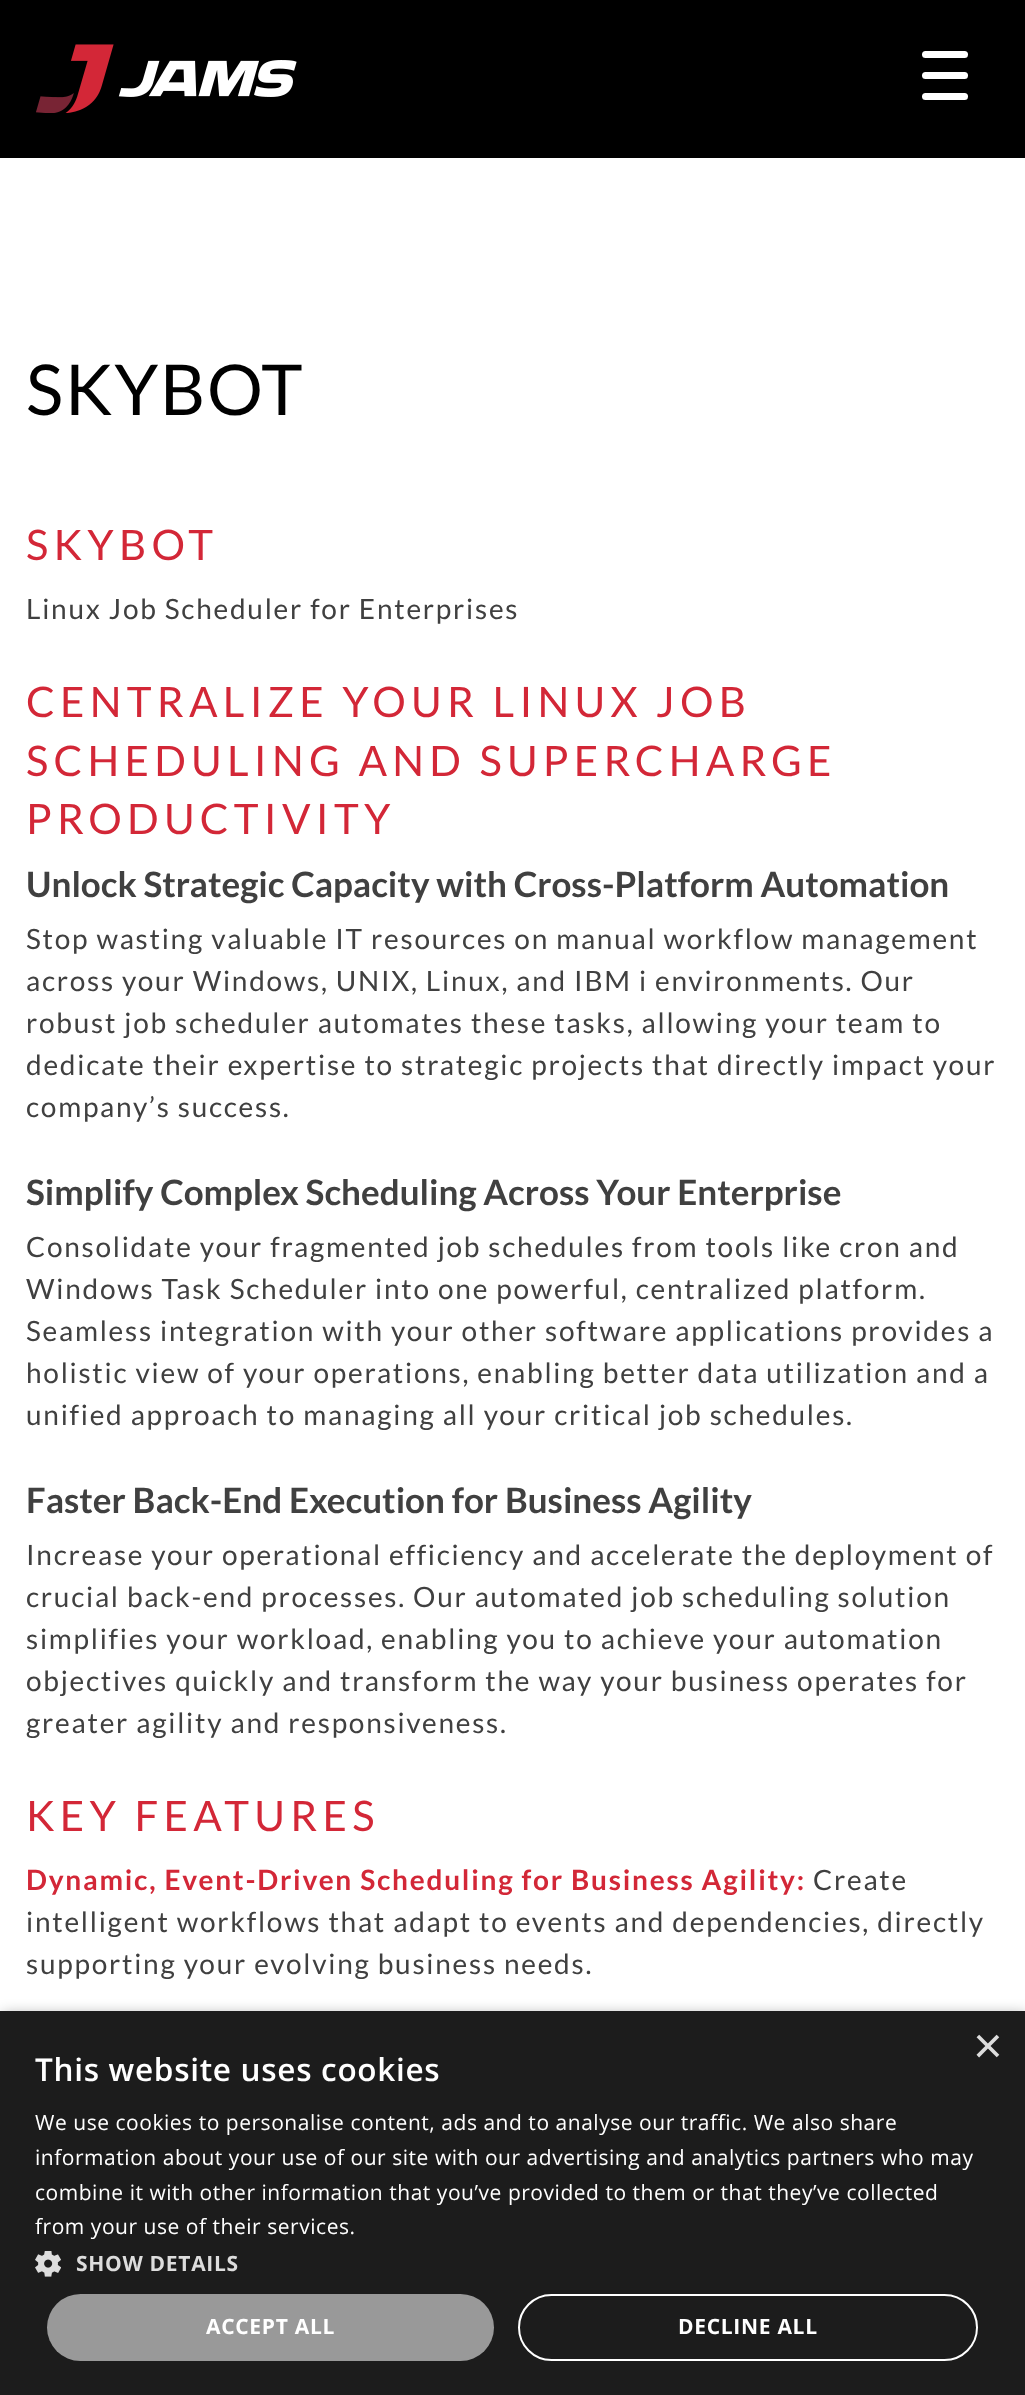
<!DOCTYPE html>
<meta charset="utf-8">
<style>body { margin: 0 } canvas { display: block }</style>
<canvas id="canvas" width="1025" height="2395"></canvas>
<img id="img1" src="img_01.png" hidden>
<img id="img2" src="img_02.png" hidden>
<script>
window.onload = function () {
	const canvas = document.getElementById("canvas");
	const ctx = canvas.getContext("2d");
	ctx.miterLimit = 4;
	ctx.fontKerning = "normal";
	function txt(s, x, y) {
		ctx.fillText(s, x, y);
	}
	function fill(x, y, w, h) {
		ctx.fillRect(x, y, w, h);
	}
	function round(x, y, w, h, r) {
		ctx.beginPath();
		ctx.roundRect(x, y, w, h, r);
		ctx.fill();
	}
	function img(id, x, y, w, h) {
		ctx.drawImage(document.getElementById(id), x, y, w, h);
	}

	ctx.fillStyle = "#FFFFFF";
	fill(0, 0, 1025, 2395);
	ctx.fillStyle = "#000000";
	fill(0, 0, 1025, 158);
	img("img1", 36, 44, 261, 69);
	ctx.fillStyle = "#FFFFFF";
	round(922, 51, 46, 7, 3.5);
	round(922, 72, 46, 7, 3.5);
	round(922, 93, 46, 7, 3.5);
	ctx.fillStyle = "rgba(0, 0, 0, 0.35)";
	ctx.filter = "blur(7px)";
	ctx.beginPath();
	ctx.rect(2, 2014, 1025, 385);
	ctx.fill();
	ctx.filter = "none";
	ctx.fillStyle = "#1C1C1C";
	fill(0, 2011, 1025, 384);
	img("img2", 35, 2251, 26, 26);
	ctx.fillStyle = "#999999";
	round(47, 2294, 447, 67, 33.5);
	ctx.beginPath();
	ctx.roundRect(519, 2295, 458, 65, 32.5);
	ctx.strokeStyle = "#FFFFFF";
	ctx.lineWidth = 2;
	ctx.stroke();
	ctx.letterSpacing = "1.75px";
	ctx.font = "70px Lato";
	ctx.fillStyle = "#000000";
	txt("SKYBOT", 26, 415);
	ctx.letterSpacing = "5.25px";
	ctx.font = "42px Lato";
	ctx.fillStyle = "#D32737";
	txt("SKYBOT", 26, 560);
	ctx.letterSpacing = "1.75px";
	ctx.font = "28px Lato";
	ctx.fillStyle = "#404040";
	txt("Linux Job Scheduler for Enterprises", 26, 619);
	ctx.letterSpacing = "5.25px";
	ctx.font = "42px Lato";
	ctx.fillStyle = "#D32737";
	txt("CENTRALIZE YOUR LINUX JOB", 26, 717);
	txt("SCHEDULING AND SUPERCHARGE", 26, 776);
	txt("PRODUCTIVITY", 26, 834);
	ctx.letterSpacing = "0px";
	ctx.font = "bold 35px Lato";
	ctx.fillStyle = "#404040";
	txt("Unlock Strategic Capacity with Cross-Platform Automation", 26, 897);
	ctx.letterSpacing = "1.75px";
	ctx.font = "28px Lato";
	txt("Stop wasting valuable IT resources on manual workflow management", 26, 949);
	txt("across your Windows, UNIX, Linux, and IBM i environments. Our", 26, 991);
	txt("robust job scheduler automates these tasks, allowing your team to", 26, 1033);
	txt("dedicate their expertise to strategic projects that directly impact your", 26, 1075);
	txt("company’s success.", 26, 1117);
	ctx.letterSpacing = "0px";
	ctx.font = "bold 35px Lato";
	txt("Simplify Complex Scheduling Across Your Enterprise", 26, 1205);
	ctx.letterSpacing = "1.75px";
	ctx.font = "28px Lato";
	txt("Consolidate your fragmented job schedules from tools like cron and", 26, 1257);
	txt("Windows Task Scheduler into one powerful, centralized platform.", 26, 1299);
	txt("Seamless integration with your other software applications provides a", 26, 1341);
	txt("holistic view of your operations, enabling better data utilization and a", 26, 1383);
	txt("unified approach to managing all your critical job schedules.", 26, 1425);
	ctx.letterSpacing = "0px";
	ctx.font = "bold 35px Lato";
	txt("Faster Back-End Execution for Business Agility", 26, 1513);
	ctx.letterSpacing = "1.75px";
	ctx.font = "28px Lato";
	txt("Increase your operational efficiency and accelerate the deployment of", 26, 1565);
	txt("crucial back-end processes. Our automated job scheduling solution", 26, 1607);
	txt("simplifies your workload, enabling you to achieve your automation", 26, 1649);
	txt("objectives quickly and transform the way your business operates for", 26, 1691);
	txt("greater agility and responsiveness.", 26, 1733);
	ctx.letterSpacing = "5.25px";
	ctx.font = "42px Lato";
	ctx.fillStyle = "#D32737";
	txt("KEY FEATURES", 26, 1831);
	ctx.letterSpacing = "1.75px";
	ctx.font = "bold 28px Lato";
	txt("Dynamic, Event-Driven Scheduling for Business Agility:", 26, 1890);
	ctx.font = "28px Lato";
	ctx.fillStyle = "#404040";
	txt("Create", 813, 1890);
	txt("intelligent workflows that adapt to events and dependencies, directly", 26, 1932);
	txt("supporting your evolving business needs.", 26, 1974);
	ctx.letterSpacing = "0px";
	ctx.font = "51px Liberation Sans";
	ctx.fillStyle = "#DDDDDD";
	txt("×", 973, 2063);
	ctx.letterSpacing = "0.7px";
	ctx.font = "600 31.5px Open Sans";
	ctx.fillStyle = "#FFFFFF";
	txt("This website uses cookies", 35, 2081);
	ctx.letterSpacing = "0.53px";
	ctx.font = "21px Open Sans";
	txt("We use cookies to personalise content, ads and to analyse our traffic. We also share", 35, 2130);
	txt("information about your use of our site with our advertising and analytics partners who may", 35, 2165);
	txt("combine it with other information that you’ve provided to them or that they’ve collected", 35, 2200);
	txt("from your use of their services.", 35, 2234);
	ctx.letterSpacing = "0.7px";
	ctx.font = "bold 21px Open Sans";
	ctx.fillStyle = "#DDDDDD";
	txt("SHOW DETAILS", 76, 2271);
	ctx.fillStyle = "#FFFFFF";
	txt("ACCEPT ALL", 206, 2334);
	txt("DECLINE ALL", 678, 2334);
};
</script>
